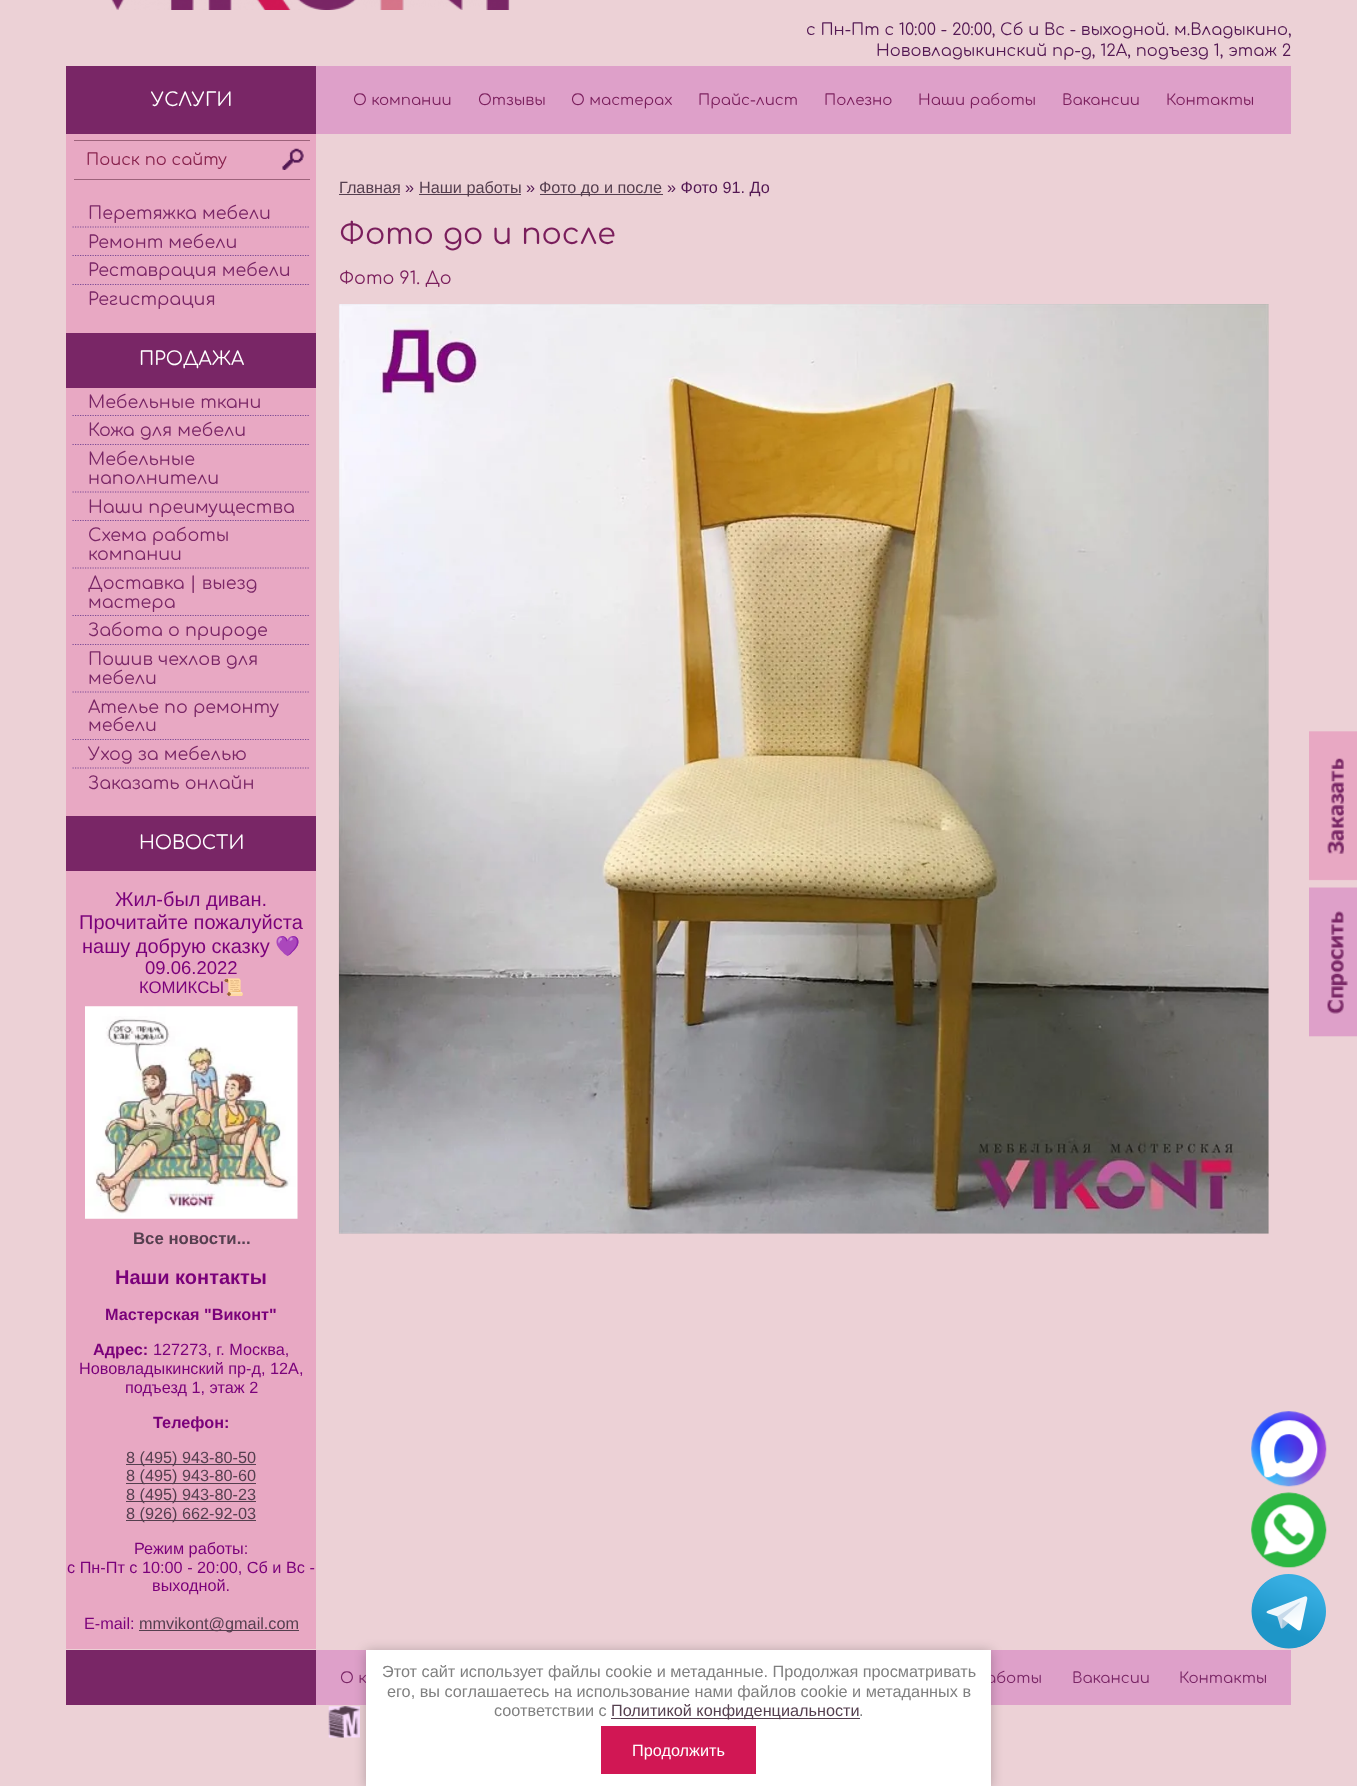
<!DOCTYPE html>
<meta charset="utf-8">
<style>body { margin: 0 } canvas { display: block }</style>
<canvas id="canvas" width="1357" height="1786"></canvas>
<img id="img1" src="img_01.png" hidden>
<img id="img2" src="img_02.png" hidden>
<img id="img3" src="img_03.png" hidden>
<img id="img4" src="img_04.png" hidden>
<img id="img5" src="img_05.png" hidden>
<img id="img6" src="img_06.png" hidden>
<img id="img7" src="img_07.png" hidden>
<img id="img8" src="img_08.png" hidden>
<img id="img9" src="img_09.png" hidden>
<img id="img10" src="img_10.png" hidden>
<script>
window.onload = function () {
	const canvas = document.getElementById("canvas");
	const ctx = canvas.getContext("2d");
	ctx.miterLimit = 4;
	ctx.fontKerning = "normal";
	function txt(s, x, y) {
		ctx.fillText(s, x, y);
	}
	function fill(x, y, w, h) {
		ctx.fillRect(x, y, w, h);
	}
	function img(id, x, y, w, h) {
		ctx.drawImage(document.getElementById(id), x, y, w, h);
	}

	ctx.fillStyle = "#ECD1D6";
	fill(0, 0, 1357, 1786);
	img("img1", 111, 0, 399, 10);
	ctx.fillStyle = "#792666";
	fill(66, 66, 250, 68);
	ctx.fillStyle = "#DEA0C9";
	fill(316, 66, 975, 68);
	ctx.fillStyle = "#E8A8C3";
	fill(66, 134, 250, 1515);
	ctx.fillStyle = "#9D627B";
	fill(74, 140, 236, 1);
	fill(74, 179, 236, 1);
	img("img2", 282, 148, 22, 22);
	ctx.beginPath();
	ctx.moveTo(72.5, 227);
	ctx.lineTo(310, 227);
	ctx.strokeStyle = "#7D4B96";
	ctx.lineWidth = 1.2;
	ctx.setLineDash([1.25, 1.25]);
	ctx.stroke();
	ctx.beginPath();
	ctx.moveTo(72.5, 255.5);
	ctx.lineTo(310, 255.5);
	ctx.stroke();
	ctx.beginPath();
	ctx.moveTo(72.5, 284.5);
	ctx.lineTo(310, 284.5);
	ctx.stroke();
	ctx.fillStyle = "#792666";
	fill(66, 333, 250, 55);
	ctx.beginPath();
	ctx.moveTo(72.5, 415.5);
	ctx.lineTo(310, 415.5);
	ctx.stroke();
	ctx.beginPath();
	ctx.moveTo(72.5, 444.5);
	ctx.lineTo(310, 444.5);
	ctx.stroke();
	ctx.beginPath();
	ctx.moveTo(72.5, 492);
	ctx.lineTo(310, 492);
	ctx.stroke();
	ctx.beginPath();
	ctx.moveTo(72.5, 520.5);
	ctx.lineTo(310, 520.5);
	ctx.stroke();
	ctx.beginPath();
	ctx.moveTo(72.5, 568);
	ctx.lineTo(310, 568);
	ctx.stroke();
	ctx.beginPath();
	ctx.moveTo(72.5, 615.5);
	ctx.lineTo(310, 615.5);
	ctx.stroke();
	ctx.beginPath();
	ctx.moveTo(72.5, 644.5);
	ctx.lineTo(310, 644.5);
	ctx.stroke();
	ctx.beginPath();
	ctx.moveTo(72.5, 692);
	ctx.lineTo(310, 692);
	ctx.stroke();
	ctx.beginPath();
	ctx.moveTo(72.5, 739.5);
	ctx.lineTo(310, 739.5);
	ctx.stroke();
	ctx.beginPath();
	ctx.moveTo(72.5, 768);
	ctx.lineTo(310, 768);
	ctx.stroke();
	fill(66, 816, 250, 55);
	img("img3", 85, 1006, 213, 213);
	ctx.fillStyle = "#553F4F";
	fill(126, 1464, 130, 1);
	fill(126, 1483, 130, 1);
	fill(126, 1501, 130, 1);
	fill(126, 1520, 130, 1);
	fill(139, 1630, 160, 1);
	fill(339, 194, 61, 1);
	fill(419, 194, 102, 1);
	fill(540, 194, 123, 1);
	img("img4", 338, 304, 931, 930);
	ctx.fillStyle = "#792666";
	fill(66, 1650, 250, 55);
	ctx.fillStyle = "#DEA0C9";
	fill(316, 1650, 975, 55);
	img("img5", 328, 1706, 32, 32);
	img("img6", 1309, 731, 48, 150);
	img("img7", 1309, 887, 48, 150);
	img("img8", 1251, 1411, 76, 76);
	img("img9", 1251, 1492, 76, 76);
	img("img10", 1251, 1574, 75, 75);
	ctx.fillStyle = "rgba(0, 0, 0, 0.25)";
	ctx.filter = "blur(6px)";
	ctx.beginPath();
	ctx.rect(366, 1651, 625, 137);
	ctx.fill();
	ctx.filter = "none";
	ctx.font = "16.25px Comfortaa";
	ctx.fillStyle = "#531853";
	txt("с Пн-Пт с 10:00 - 20:00, Сб и Вс - выходной. м.Владыкино,", 806, 35);
	txt("Нововладыкинский пр-д, 12А, подъезд 1, этаж 2", 876, 56);
	ctx.font = "18.75px Comfortaa";
	ctx.fillStyle = "#FFFFFF";
	txt("УСЛУГИ", 151, 106);
	ctx.font = "15px Comfortaa";
	ctx.fillStyle = "#7A1E5C";
	txt("О компании", 353, 105);
	txt("Отзывы", 478, 105);
	txt("О мастерах", 571, 105);
	txt("Прайс-лист", 698, 105);
	txt("Полезно", 824, 105);
	txt("Наши работы", 918, 105);
	txt("Вакансии", 1062, 105);
	txt("Контакты", 1166, 105);
	ctx.font = "16.25px Comfortaa";
	ctx.fillStyle = "#88224D";
	txt("Поиск по сайту", 86, 165);
	ctx.font = "17.5px Comfortaa";
	ctx.fillStyle = "#7A2666";
	txt("Перетяжка мебели", 88, 219);
	txt("Ремонт мебели", 88, 248);
	txt("Реставрация мебели", 88, 276);
	txt("Регистрация", 88, 305);
	ctx.font = "18.75px Comfortaa";
	ctx.fillStyle = "#FFFFFF";
	txt("ПРОДАЖА", 139, 365);
	ctx.font = "17.5px Comfortaa";
	ctx.fillStyle = "#7A2666";
	txt("Мебельные ткани", 88, 408);
	txt("Кожа для мебели", 88, 436);
	txt("Мебельные", 88, 465);
	txt("наполнители", 88, 484);
	txt("Наши преимущества", 88, 513);
	txt("Схема работы", 88, 541);
	txt("компании", 88, 560);
	txt("Доставка | выезд", 88, 589);
	txt("мастера", 88, 608);
	txt("Забота о природе", 88, 636);
	txt("Пошив чехлов для", 88, 665);
	txt("мебели", 88, 684);
	txt("Ателье по ремонту", 88, 713);
	txt("мебели", 88, 731);
	txt("Уход за мебелью", 88, 760);
	txt("Заказать онлайн", 88, 789);
	ctx.font = "18.75px Comfortaa";
	ctx.fillStyle = "#FFFFFF";
	txt("НОВОСТИ", 139, 849);
	ctx.font = "20px Liberation Sans";
	ctx.fillStyle = "#7A007A";
	txt("Жил-был диван.", 115, 906);
	txt("Прочитайте пожалуйста", 79, 929);
	txt("нашу добрую сказку", 82, 953);
	ctx.font = "20px Noto Color Emoji";
	txt("💜", 275, 953);
	ctx.font = "18.5px Liberation Sans";
	txt("09.06.2022", 145, 974);
	ctx.font = "16.75px Liberation Sans";
	txt("КОМИКСЫ", 139, 993);
	ctx.font = "16.75px Noto Color Emoji";
	txt("📜", 223, 993);
	ctx.font = "bold 16.75px Liberation Sans";
	ctx.fillStyle = "#553F4F";
	txt("Все новости...", 133, 1244);
	ctx.font = "bold 20px Liberation Sans";
	ctx.fillStyle = "#7A007A";
	txt("Наши контакты", 115, 1284);
	ctx.font = "bold 16.25px Liberation Sans";
	txt("Мастерская \"Виконт\"", 105, 1320);
	txt("Адрес:", 93, 1355);
	ctx.font = "16.25px Liberation Sans";
	txt("127273, г. Москва,", 153, 1355);
	txt("Нововладыкинский пр-д, 12А,", 79, 1374);
	txt("подъезд 1, этаж 2", 125, 1393);
	ctx.font = "bold 16.25px Liberation Sans";
	txt("Телефон:", 153, 1428);
	ctx.font = "16.25px Liberation Sans";
	ctx.fillStyle = "#553F4F";
	txt("8 (495) 943-80-50", 126, 1463);
	txt("8 (495) 943-80-60", 126, 1481);
	txt("8 (495) 943-80-23", 126, 1500);
	txt("8 (926) 662-92-03", 126, 1519);
	ctx.fillStyle = "#7A007A";
	txt("Режим работы:", 134, 1554);
	txt("с Пн-Пт с 10:00 - 20:00, Сб и Вс -", 67, 1573);
	txt("выходной.", 152, 1591);
	txt("E-mail:", 84, 1629);
	ctx.fillStyle = "#553F4F";
	txt("mmvikont@gmail.com", 139, 1629);
	txt("Главная", 339, 193);
	ctx.fillStyle = "#531853";
	txt("»", 405, 193);
	ctx.fillStyle = "#553F4F";
	txt("Наши работы", 419, 193);
	ctx.fillStyle = "#531853";
	txt("»", 526, 193);
	ctx.fillStyle = "#553F4F";
	txt("Фото до и после", 539, 193);
	ctx.fillStyle = "#531853";
	txt("» Фото 91. До", 667, 193);
	ctx.font = "30px Comfortaa";
	ctx.fillStyle = "#7A1E5C";
	txt("Фото до и после", 339, 244);
	ctx.font = "17.5px Comfortaa";
	txt("Фото 91. До", 339, 284);
	ctx.font = "15px Comfortaa";
	ctx.fillStyle = "#7A2666";
	txt("О к", 340, 1683);
	txt("аботы", 986, 1683);
	txt("Вакансии", 1072, 1683);
	txt("Контакты", 1179, 1683);
	ctx.fillStyle = "#FFFFFF";
	fill(366, 1650, 625, 136);
	ctx.font = "16.25px Liberation Sans";
	ctx.fillStyle = "#808080";
	txt("Этот сайт использует файлы cookie и метаданные. Продолжая просматривать", 382, 1677);
	txt("его, вы соглашаетесь на использование нами файлов cookie и метаданных в", 387, 1697);
	txt("соответствии с", 494, 1716);
	ctx.fillStyle = "#553F4F";
	fill(611, 1718, 249, 1);
	txt("Политикой конфиденциальности", 611, 1716);
	ctx.fillStyle = "#808080";
	txt(".", 859, 1716);
	ctx.fillStyle = "#D11754";
	fill(601, 1726, 155, 48);
	ctx.fillStyle = "#FFFFFF";
	txt("Продолжить", 632, 1756);
};
</script>
